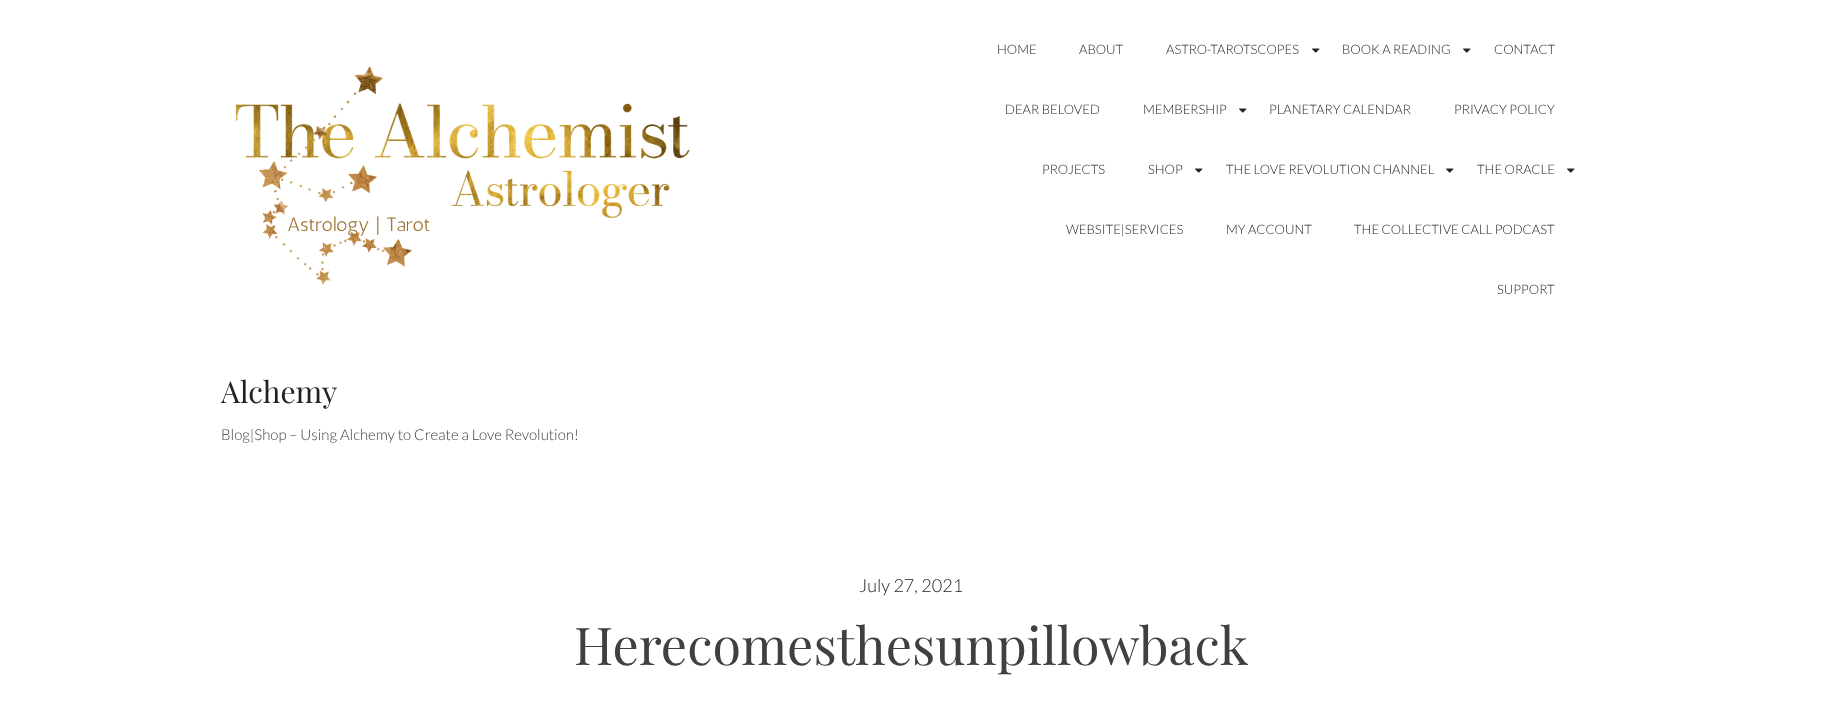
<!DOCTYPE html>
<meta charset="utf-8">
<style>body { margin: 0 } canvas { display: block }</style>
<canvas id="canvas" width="1822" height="712"></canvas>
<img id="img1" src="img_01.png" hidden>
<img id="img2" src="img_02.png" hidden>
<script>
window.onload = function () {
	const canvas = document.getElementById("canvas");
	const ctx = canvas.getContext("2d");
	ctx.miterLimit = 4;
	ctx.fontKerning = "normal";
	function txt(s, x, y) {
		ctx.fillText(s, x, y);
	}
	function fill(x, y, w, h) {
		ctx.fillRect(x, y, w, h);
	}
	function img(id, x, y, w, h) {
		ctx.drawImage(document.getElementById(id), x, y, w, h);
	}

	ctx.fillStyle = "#FFFFFF";
	fill(0, 0, 1822, 712);
	img("img1", 1312, 48, 8, 5);
	img("img1", 1463, 48, 8, 5);
	img("img1", 1239, 108, 8, 5);
	img("img1", 1195, 168, 8, 5);
	img("img1", 1446, 168, 8, 5);
	img("img1", 1567, 168, 8, 5);
	img("img2", 235, 66, 455, 219);
	ctx.font = "300 13px Lato";
	ctx.fillStyle = "#222222";
	txt("HOME", 997, 54);
	txt("ABOUT", 1079, 54);
	txt("ASTRO-TAROTSCOPES", 1166, 54);
	txt("BOOK A READING", 1342, 54);
	txt("CONTACT", 1494, 54);
	txt("DEAR BELOVED", 1005, 114);
	txt("MEMBERSHIP", 1143, 114);
	txt("PLANETARY CALENDAR", 1269, 114);
	txt("PRIVACY POLICY", 1454, 114);
	txt("PROJECTS", 1042, 174);
	txt("SHOP", 1148, 174);
	txt("THE LOVE REVOLUTION CHANNEL", 1226, 174);
	txt("THE ORACLE", 1477, 174);
	txt("WEBSITE|SERVICES", 1066, 234);
	txt("MY ACCOUNT", 1226, 234);
	txt("THE COLLECTIVE CALL PODCAST", 1354, 234);
	txt("SUPPORT", 1497, 294);
	ctx.font = "30px Playfair Display";
	txt("Alchemy", 221, 403);
	ctx.font = "300 15px Lato";
	ctx.fillStyle = "#404040";
	txt("Blog|Shop – Using Alchemy to Create a Love Revolution!", 221, 440);
	ctx.font = "300 18px Lato";
	ctx.fillStyle = "#222222";
	txt("July 27, 2021", 859, 592);
	ctx.font = "52px Playfair Display";
	ctx.fillStyle = "#404040";
	txt("Herecomesthesunpillowback", 574, 665);
};
</script>
